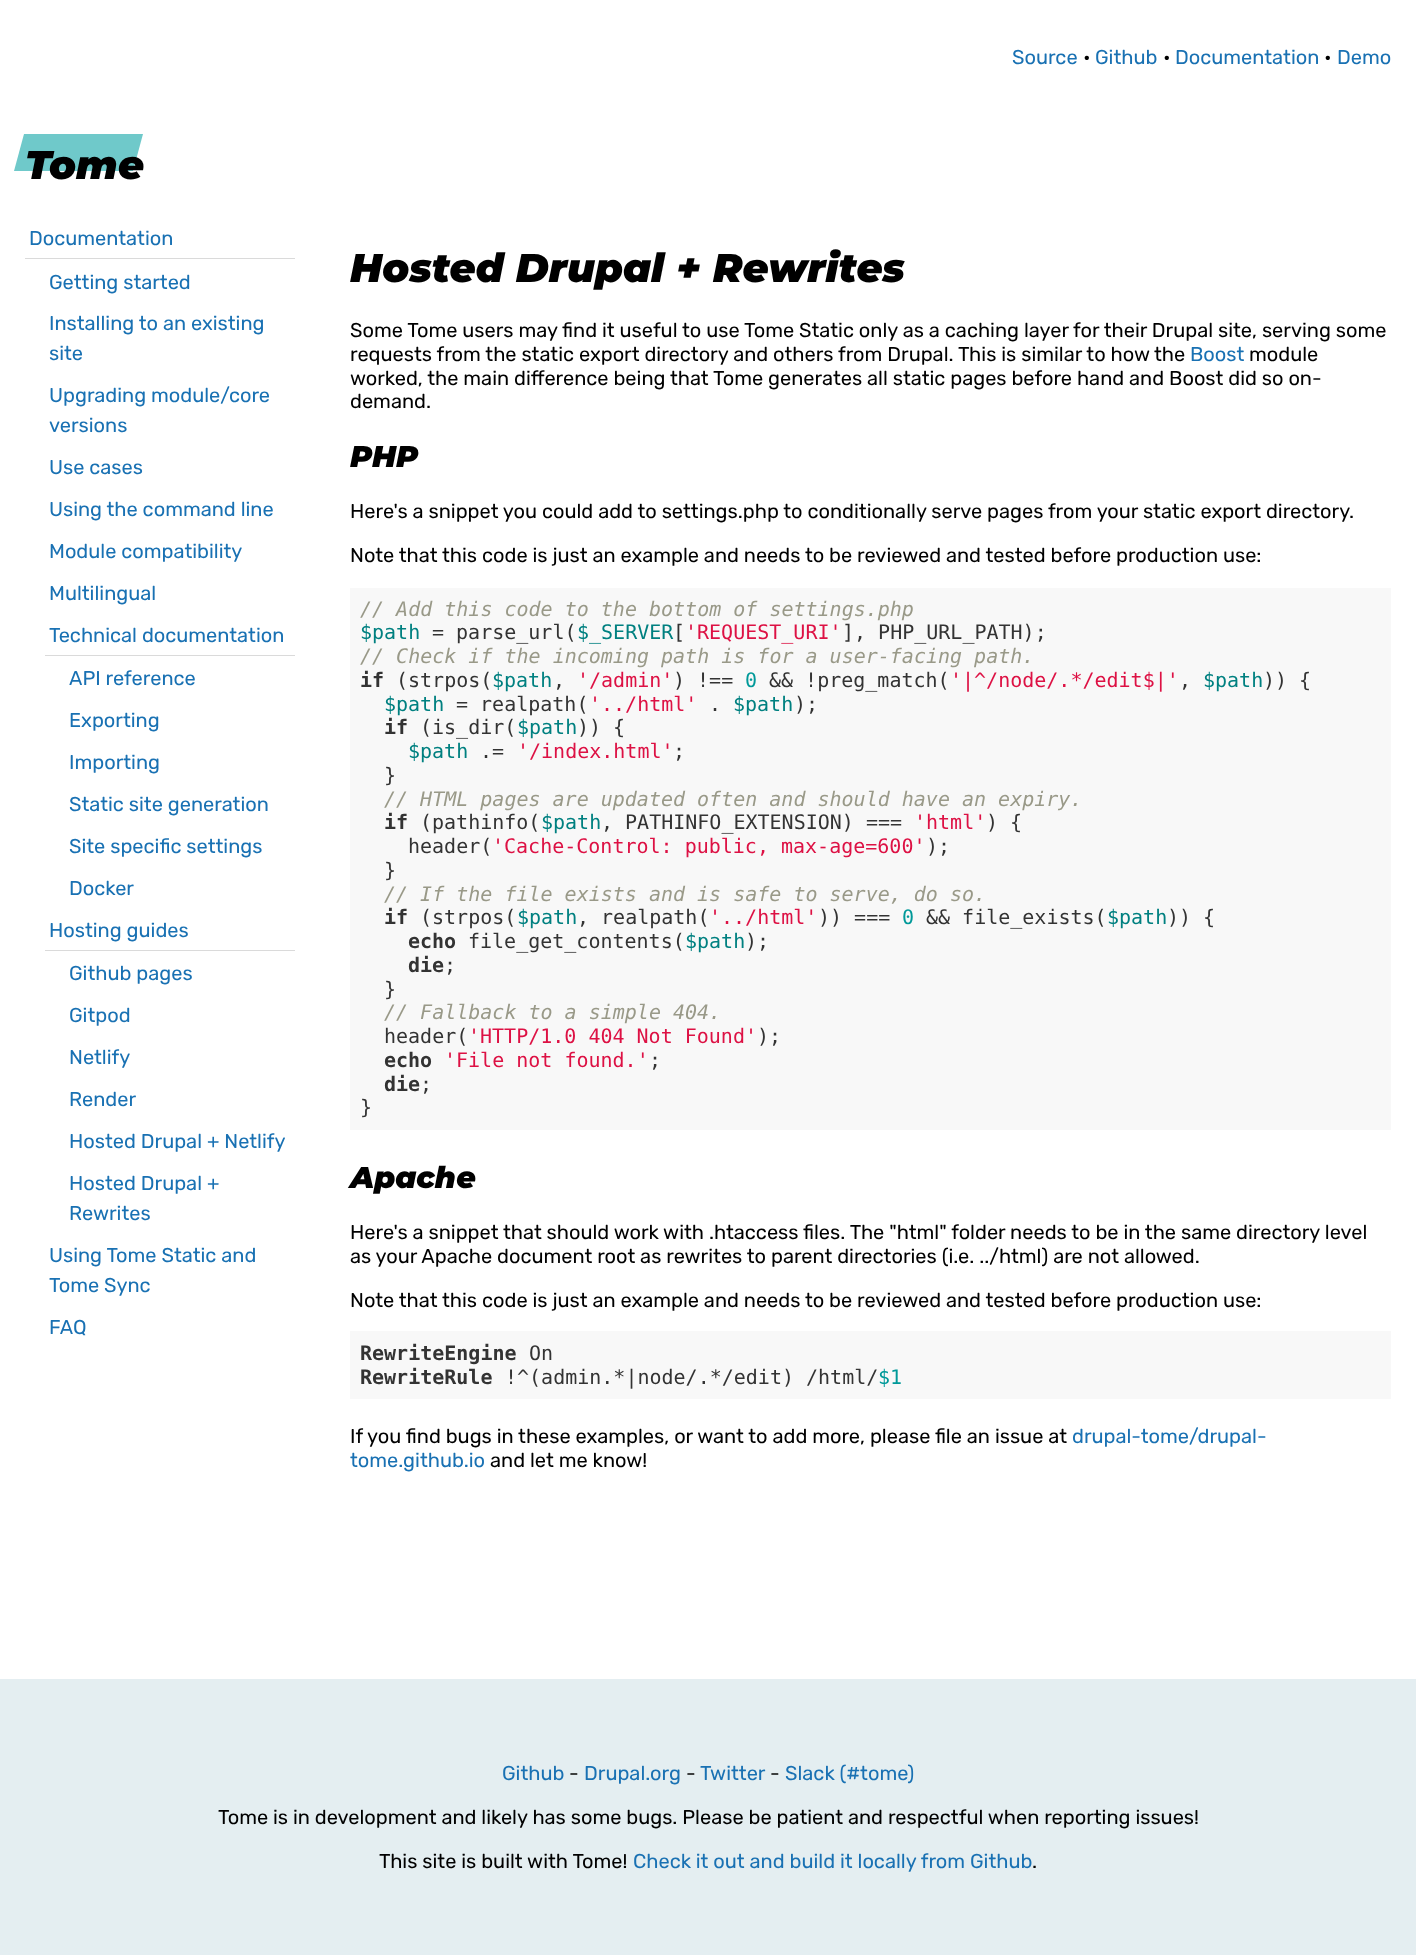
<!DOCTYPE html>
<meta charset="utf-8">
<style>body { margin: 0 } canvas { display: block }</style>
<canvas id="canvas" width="1416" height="1957"></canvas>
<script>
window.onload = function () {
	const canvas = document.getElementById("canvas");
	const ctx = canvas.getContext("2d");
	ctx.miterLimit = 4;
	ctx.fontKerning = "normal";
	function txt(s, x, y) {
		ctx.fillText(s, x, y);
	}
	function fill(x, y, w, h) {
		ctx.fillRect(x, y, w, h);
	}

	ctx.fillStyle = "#FFFFFF";
	fill(0, 0, 1416, 1957);
	ctx.fillStyle = "#6FC9CA";
	ctx.beginPath();
	ctx.moveTo(24, 134);
	ctx.lineTo(143, 134);
	ctx.lineTo(133, 171);
	ctx.lineTo(14, 171);
	ctx.closePath();
	ctx.fill();
	ctx.fillStyle = "#DADADA";
	fill(25, 258, 270, 1);
	fill(45, 655, 250, 1);
	fill(45, 950, 250, 1);
	ctx.fillStyle = "#F8F8F8";
	fill(350, 588, 1041, 542);
	fill(350, 1331, 1041, 68);
	ctx.fillStyle = "#E4EEF1";
	fill(0, 1679, 1416, 276);
	ctx.font = "300 20px Rubik";
	ctx.fillStyle = "#1971B3";
	txt("Source", 1012, 64);
	ctx.fillStyle = "#000000";
	txt("•", 1083, 64);
	ctx.fillStyle = "#1971B3";
	txt("Github", 1095, 64);
	ctx.fillStyle = "#000000";
	txt("•", 1163, 64);
	ctx.fillStyle = "#1971B3";
	txt("Documentation", 1175, 64);
	ctx.fillStyle = "#000000";
	txt("•", 1324, 64);
	ctx.fillStyle = "#1971B3";
	txt("Demo", 1337, 64);
	ctx.font = "italic 100 40px Montserrat";
	ctx.fillStyle = "#000000";
	txt("Tome", 25, 179);
	ctx.font = "300 20px Rubik";
	ctx.fillStyle = "#1971B3";
	txt("Documentation", 29, 245);
	txt("Getting started", 49, 289);
	txt("Installing to an existing", 49, 330);
	txt("site", 49, 360);
	txt("Upgrading module/core", 49, 402);
	txt("versions", 49, 432);
	txt("Use cases", 49, 474);
	txt("Using the command line", 49, 516);
	txt("Module compatibility", 49, 558);
	txt("Multilingual", 49, 600);
	txt("Technical documentation", 49, 642);
	txt("API reference", 69, 685);
	txt("Exporting", 69, 727);
	txt("Importing", 69, 769);
	txt("Static site generation", 69, 811);
	txt("Site specific settings", 69, 853);
	txt("Docker", 69, 895);
	txt("Hosting guides", 49, 937);
	txt("Github pages", 69, 980);
	txt("Gitpod", 69, 1022);
	txt("Netlify", 69, 1064);
	txt("Render", 69, 1106);
	txt("Hosted Drupal + Netlify", 69, 1148);
	txt("Hosted Drupal +", 69, 1190);
	txt("Rewrites", 69, 1220);
	txt("Using Tome Static and", 49, 1262);
	txt("Tome Sync", 49, 1292);
	txt("FAQ", 49, 1334);
	ctx.font = "italic 100 40px Montserrat";
	ctx.fillStyle = "#000000";
	txt("Hosted Drupal + Rewrites", 350, 282);
	ctx.font = "300 20px Rubik";
	txt("Some Tome users may find it useful to use Tome Static only as a caching layer for their Drupal site, serving some", 350, 337);
	txt("requests from the static export directory and others from Drupal. This is similar to how the", 350, 361);
	ctx.fillStyle = "#1971B3";
	txt("Boost", 1190, 361);
	ctx.fillStyle = "#000000";
	txt("module", 1249, 361);
	txt("worked, the main difference being that Tome generates all static pages before hand and Boost did so on-", 350, 385);
	txt("demand.", 350, 408);
	ctx.font = "italic 100 30px Montserrat";
	txt("PHP", 350, 467);
	ctx.font = "300 20px Rubik";
	txt("Here's a snippet you could add to settings.php to conditionally serve pages from your static export directory.", 350, 518);
	txt("Note that this code is just an example and needs to be reviewed and tested before production use:", 350, 562);
	ctx.font = "italic 20px DejaVu Sans Mono";
	ctx.fillStyle = "#999988";
	txt("// Add this code to the bottom of settings.php", 360, 616);
	ctx.font = "20px DejaVu Sans Mono";
	ctx.fillStyle = "#008080";
	txt("$path", 360, 639);
	ctx.fillStyle = "#333333";
	txt("= parse_url(", 432, 639);
	ctx.fillStyle = "#008080";
	txt("$_SERVER", 577, 639);
	ctx.fillStyle = "#333333";
	txt("[", 673, 639);
	ctx.fillStyle = "#DD1144";
	txt("'REQUEST_URI'", 685, 639);
	ctx.fillStyle = "#333333";
	txt("], PHP_URL_PATH);", 842, 639);
	ctx.font = "italic 20px DejaVu Sans Mono";
	ctx.fillStyle = "#999988";
	txt("// Check if the incoming path is for a user-facing path.", 360, 663);
	ctx.font = "bold 20px DejaVu Sans Mono";
	ctx.fillStyle = "#333333";
	txt("if", 360, 687);
	ctx.font = "20px DejaVu Sans Mono";
	txt("(strpos(", 396, 687);
	ctx.fillStyle = "#008080";
	txt("$path", 492, 687);
	ctx.fillStyle = "#333333";
	txt(",", 553, 687);
	ctx.fillStyle = "#DD1144";
	txt("'/admin'", 577, 687);
	ctx.fillStyle = "#333333";
	txt(") !==", 673, 687);
	ctx.fillStyle = "#009999";
	txt("0", 745, 687);
	ctx.fillStyle = "#333333";
	txt("&& !preg_match(", 769, 687);
	ctx.fillStyle = "#DD1144";
	txt("'|^/node/.*/edit$|'", 950, 687);
	ctx.fillStyle = "#333333";
	txt(",", 1179, 687);
	ctx.fillStyle = "#008080";
	txt("$path", 1203, 687);
	ctx.fillStyle = "#333333";
	txt(")) {", 1263, 687);
	ctx.fillStyle = "#008080";
	txt("$path", 384, 711);
	ctx.fillStyle = "#333333";
	txt("= realpath(", 456, 711);
	ctx.fillStyle = "#DD1144";
	txt("'../html'", 589, 711);
	ctx.fillStyle = "#333333";
	txt(".", 709, 711);
	ctx.fillStyle = "#008080";
	txt("$path", 733, 711);
	ctx.fillStyle = "#333333";
	txt(");", 794, 711);
	ctx.font = "bold 20px DejaVu Sans Mono";
	txt("if", 384, 734);
	ctx.font = "20px DejaVu Sans Mono";
	txt("(is_dir(", 420, 734);
	ctx.fillStyle = "#008080";
	txt("$path", 517, 734);
	ctx.fillStyle = "#333333";
	txt(")) {", 577, 734);
	ctx.fillStyle = "#008080";
	txt("$path", 408, 758);
	ctx.fillStyle = "#333333";
	txt(".=", 480, 758);
	ctx.fillStyle = "#DD1144";
	txt("'/index.html'", 517, 758);
	ctx.fillStyle = "#333333";
	txt(";", 673, 758);
	txt("}", 384, 782);
	ctx.font = "italic 20px DejaVu Sans Mono";
	ctx.fillStyle = "#999988";
	txt("// HTML pages are updated often and should have an expiry.", 384, 806);
	ctx.font = "bold 20px DejaVu Sans Mono";
	ctx.fillStyle = "#333333";
	txt("if", 384, 829);
	ctx.font = "20px DejaVu Sans Mono";
	txt("(pathinfo(", 420, 829);
	ctx.fillStyle = "#008080";
	txt("$path", 541, 829);
	ctx.fillStyle = "#333333";
	txt(", PATHINFO_EXTENSION) ===", 601, 829);
	ctx.fillStyle = "#DD1144";
	txt("'html'", 914, 829);
	ctx.fillStyle = "#333333";
	txt(") {", 986, 829);
	txt("header(", 408, 853);
	ctx.fillStyle = "#DD1144";
	txt("'Cache-Control: public, max-age=600'", 492, 853);
	ctx.fillStyle = "#333333";
	txt(");", 926, 853);
	txt("}", 384, 877);
	ctx.font = "italic 20px DejaVu Sans Mono";
	ctx.fillStyle = "#999988";
	txt("// If the file exists and is safe to serve, do so.", 384, 901);
	ctx.font = "bold 20px DejaVu Sans Mono";
	ctx.fillStyle = "#333333";
	txt("if", 384, 924);
	ctx.font = "20px DejaVu Sans Mono";
	txt("(strpos(", 420, 924);
	ctx.fillStyle = "#008080";
	txt("$path", 517, 924);
	ctx.fillStyle = "#333333";
	txt(", realpath(", 577, 924);
	ctx.fillStyle = "#DD1144";
	txt("'../html'", 709, 924);
	ctx.fillStyle = "#333333";
	txt(")) ===", 818, 924);
	ctx.fillStyle = "#009999";
	txt("0", 902, 924);
	ctx.fillStyle = "#333333";
	txt("&& file_exists(", 926, 924);
	ctx.fillStyle = "#008080";
	txt("$path", 1107, 924);
	ctx.fillStyle = "#333333";
	txt(")) {", 1167, 924);
	ctx.font = "bold 20px DejaVu Sans Mono";
	txt("echo", 408, 948);
	ctx.font = "20px DejaVu Sans Mono";
	txt("file_get_contents(", 468, 948);
	ctx.fillStyle = "#008080";
	txt("$path", 685, 948);
	ctx.fillStyle = "#333333";
	txt(");", 745, 948);
	ctx.font = "bold 20px DejaVu Sans Mono";
	txt("die", 408, 972);
	ctx.font = "20px DejaVu Sans Mono";
	txt(";", 444, 972);
	txt("}", 384, 996);
	ctx.font = "italic 20px DejaVu Sans Mono";
	ctx.fillStyle = "#999988";
	txt("// Fallback to a simple 404.", 384, 1019);
	ctx.font = "20px DejaVu Sans Mono";
	ctx.fillStyle = "#333333";
	txt("header(", 384, 1043);
	ctx.fillStyle = "#DD1144";
	txt("'HTTP/1.0 404 Not Found'", 468, 1043);
	ctx.fillStyle = "#333333";
	txt(");", 757, 1043);
	ctx.font = "bold 20px DejaVu Sans Mono";
	txt("echo", 384, 1067);
	ctx.font = "20px DejaVu Sans Mono";
	ctx.fillStyle = "#DD1144";
	txt("'File not found.'", 444, 1067);
	ctx.fillStyle = "#333333";
	txt(";", 649, 1067);
	ctx.font = "bold 20px DejaVu Sans Mono";
	txt("die", 384, 1091);
	ctx.font = "20px DejaVu Sans Mono";
	txt(";", 420, 1091);
	txt("}", 360, 1114);
	ctx.font = "italic 100 30px Montserrat";
	ctx.fillStyle = "#000000";
	txt("Apache", 350, 1188);
	ctx.font = "300 20px Rubik";
	txt("Here's a snippet that should work with .htaccess files. The \"html\" folder needs to be in the same directory level", 350, 1239);
	txt("as your Apache document root as rewrites to parent directories (i.e. ../html) are not allowed.", 350, 1263);
	txt("Note that this code is just an example and needs to be reviewed and tested before production use:", 350, 1307);
	ctx.font = "bold 20px DejaVu Sans Mono";
	ctx.fillStyle = "#333333";
	txt("RewriteEngine", 360, 1360);
	ctx.font = "20px DejaVu Sans Mono";
	txt("On", 529, 1360);
	ctx.font = "bold 20px DejaVu Sans Mono";
	txt("RewriteRule", 360, 1384);
	ctx.font = "20px DejaVu Sans Mono";
	txt("!^(admin.*|node/.*/edit) /html/", 505, 1384);
	ctx.fillStyle = "#009999";
	txt("$1", 878, 1384);
	ctx.font = "300 20px Rubik";
	ctx.fillStyle = "#000000";
	txt("If you find bugs in these examples, or want to add more, please file an issue at", 350, 1443);
	ctx.fillStyle = "#1971B3";
	txt("drupal-tome/drupal-", 1072, 1443);
	txt("tome.github.io", 350, 1467);
	ctx.fillStyle = "#000000";
	txt("and let me know!", 490, 1467);
	ctx.fillStyle = "#1971B3";
	txt("Github", 502, 1780);
	ctx.fillStyle = "#000000";
	txt("-", 569, 1780);
	ctx.fillStyle = "#1971B3";
	txt("Drupal.org", 584, 1780);
	ctx.fillStyle = "#000000";
	txt("-", 686, 1780);
	ctx.fillStyle = "#1971B3";
	txt("Twitter", 700, 1780);
	ctx.fillStyle = "#000000";
	txt("-", 770, 1780);
	ctx.fillStyle = "#1971B3";
	txt("Slack (#tome)", 785, 1780);
	ctx.fillStyle = "#000000";
	txt("Tome is in development and likely has some bugs. Please be patient and respectful when reporting issues!", 218, 1824);
	txt("This site is built with Tome!", 379, 1868);
	ctx.fillStyle = "#1971B3";
	txt("Check it out and build it locally from Github", 633, 1868);
	ctx.fillStyle = "#000000";
	txt(".", 1032, 1868);
};
</script>
